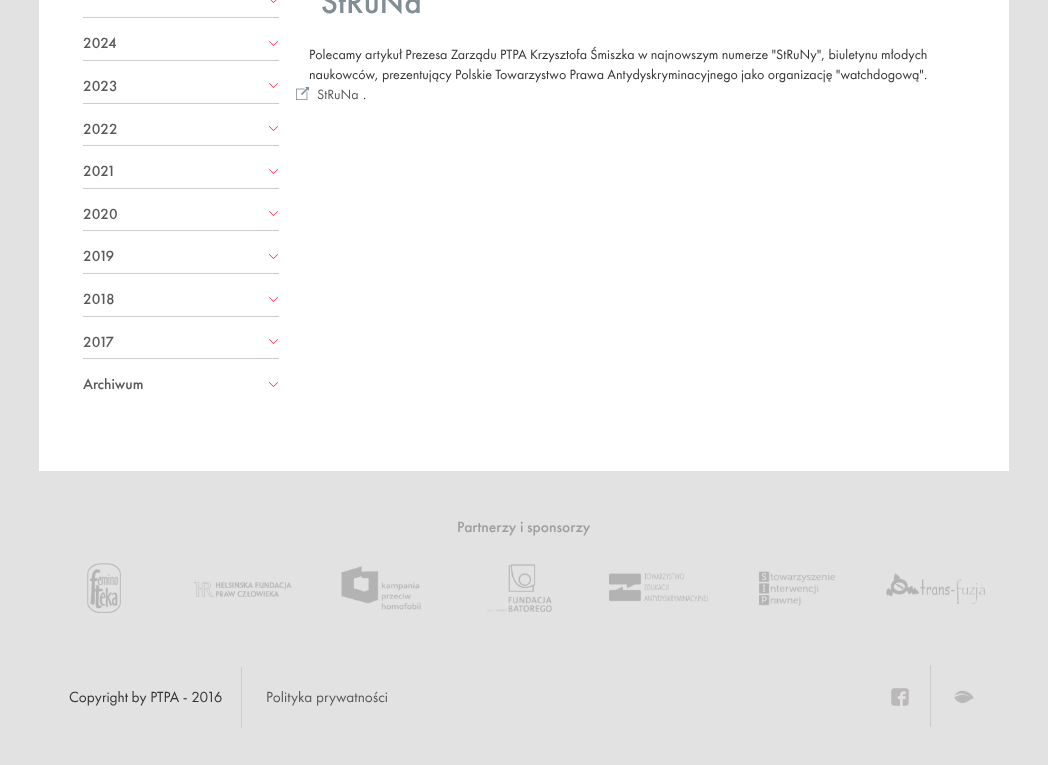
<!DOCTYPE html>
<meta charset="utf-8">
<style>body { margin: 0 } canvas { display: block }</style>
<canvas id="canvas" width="1048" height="765"></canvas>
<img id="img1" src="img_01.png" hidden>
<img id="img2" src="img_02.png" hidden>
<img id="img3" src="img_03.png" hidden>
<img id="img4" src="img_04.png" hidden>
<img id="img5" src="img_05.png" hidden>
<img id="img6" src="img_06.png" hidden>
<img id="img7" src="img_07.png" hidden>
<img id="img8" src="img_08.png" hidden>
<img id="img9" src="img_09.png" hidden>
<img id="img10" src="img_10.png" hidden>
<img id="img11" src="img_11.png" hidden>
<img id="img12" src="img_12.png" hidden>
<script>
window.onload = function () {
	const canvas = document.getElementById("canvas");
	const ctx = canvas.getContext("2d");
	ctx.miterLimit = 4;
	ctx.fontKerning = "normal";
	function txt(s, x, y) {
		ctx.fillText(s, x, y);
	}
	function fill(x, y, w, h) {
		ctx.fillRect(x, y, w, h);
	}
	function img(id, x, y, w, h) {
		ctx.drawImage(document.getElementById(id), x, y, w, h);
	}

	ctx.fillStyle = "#E3E2E2";
	fill(0, 0, 1048, 765);
	ctx.fillStyle = "#FFFFFF";
	fill(39, 0, 970, 471);
	ctx.fillStyle = "#CCCCCC";
	fill(83, 17, 196, 1);
	img("img1", 270, 0, 7, 3);
	fill(83, 60, 196, 1);
	img("img2", 269, 41, 9, 5);
	fill(83, 103, 196, 1);
	img("img2", 269, 83, 9, 5);
	fill(83, 145, 196, 1);
	img("img2", 269, 126, 9, 5);
	fill(83, 188, 196, 1);
	img("img2", 269, 169, 9, 5);
	fill(83, 230, 196, 1);
	img("img2", 269, 211, 9, 5);
	fill(83, 273, 196, 1);
	img("img2", 269, 254, 9, 5);
	fill(83, 316, 196, 1);
	img("img2", 269, 297, 9, 5);
	fill(83, 358, 196, 1);
	img("img2", 269, 339, 9, 5);
	img("img2", 269, 382, 9, 5);
	img("img3", 296, 87, 13, 13);
	img("img4", 87, 563, 34, 50);
	img("img5", 193, 581, 99, 17);
	img("img6", 341, 566, 80, 44);
	img("img7", 487, 564, 65, 48);
	img("img8", 609, 573, 99, 29);
	img("img9", 759, 571, 76, 35);
	img("img10", 886, 573, 99, 31);
	fill(241, 667, 1, 61);
	fill(930, 665, 1, 62);
	img("img11", 891, 688, 18, 18);
	img("img12", 954, 690, 20, 14);
	ctx.font = "500 15.25px Futura PT";
	ctx.fillStyle = "#595959";
	txt("2024", 83, 48);
	txt("2023", 83, 91);
	txt("2022", 83, 134);
	txt("2021", 83, 176);
	txt("2020", 83, 219);
	txt("2019", 83, 261);
	txt("2018", 83, 304);
	txt("2017", 83, 347);
	txt("Archiwum", 83, 389);
	ctx.font = "500 33px Futura PT";
	ctx.fillStyle = "#828E96";
	txt("StRuNa", 321, 13);
	ctx.font = "14px Futura PT";
	ctx.fillStyle = "#333333";
	txt("Polecamy artykuł Prezesa Zarządu PTPA Krzysztofa Śmiszka w najnowszym numerze \"StRuNy\", biuletynu młodych", 309, 59);
	txt("naukowców, prezentujący Polskie Towarzystwo Prawa Antydyskryminacyjnego jako organizację \"watchdogową\".", 309, 79);
	ctx.fillStyle = "#595959";
	txt("StRuNa", 317, 99);
	ctx.fillStyle = "#333333";
	txt(".", 363, 99);
	ctx.font = "500 15.5px Futura PT";
	ctx.fillStyle = "#9E9E9E";
	txt("Partnerzy i sponsorzy", 457, 532);
	ctx.font = "15.25px Futura PT";
	ctx.fillStyle = "#333333";
	txt("Copyright by PTPA - 2016", 69, 702);
	ctx.fillStyle = "#595959";
	txt("Polityka prywatności", 266, 702);
};
</script>
